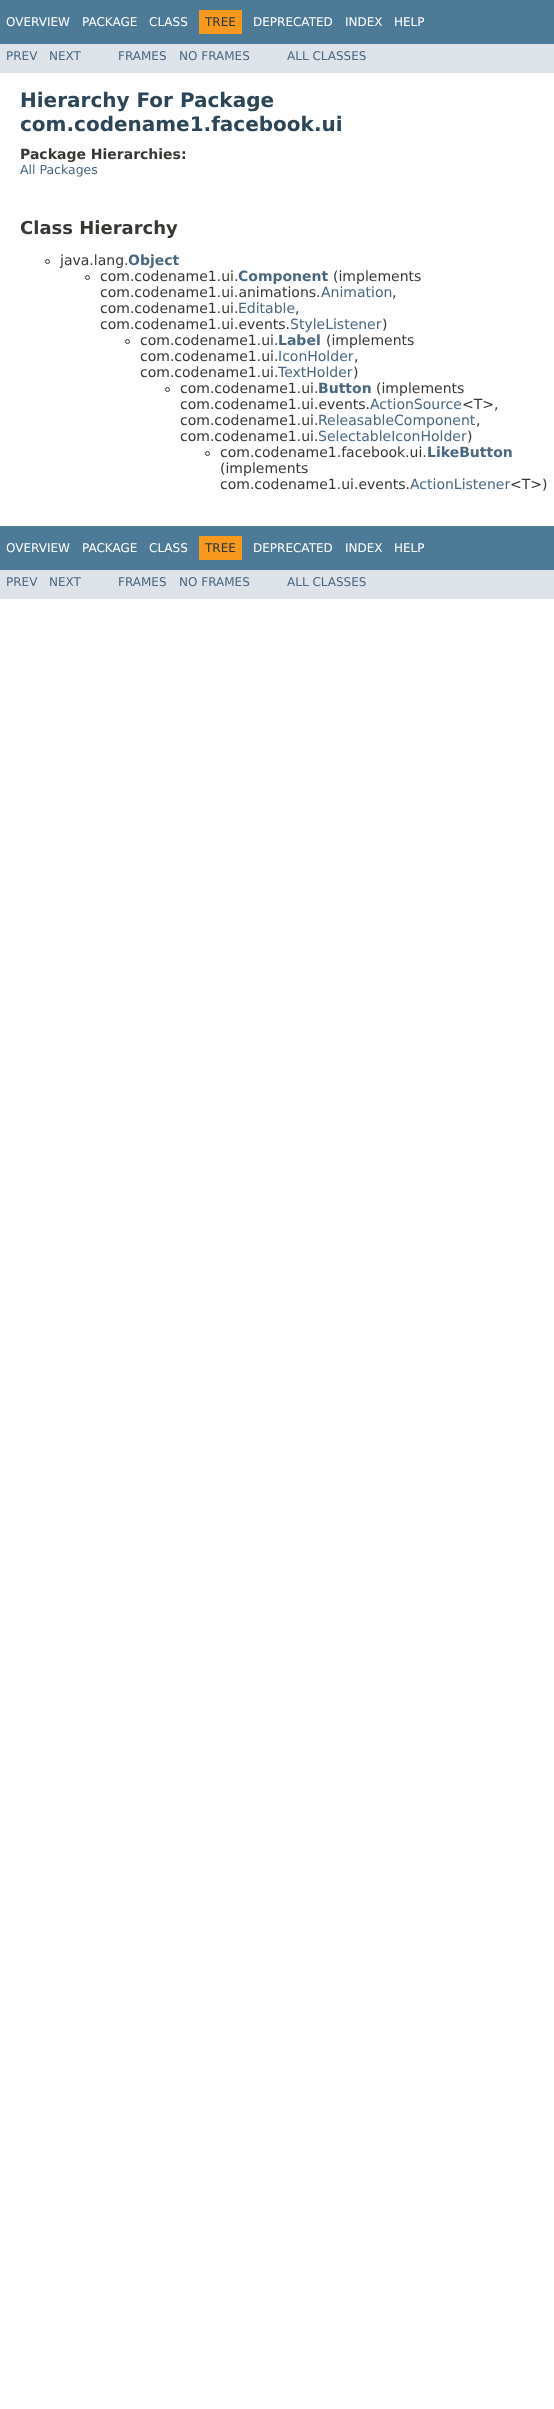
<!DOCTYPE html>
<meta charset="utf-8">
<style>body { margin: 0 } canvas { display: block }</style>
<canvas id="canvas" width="554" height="2409"></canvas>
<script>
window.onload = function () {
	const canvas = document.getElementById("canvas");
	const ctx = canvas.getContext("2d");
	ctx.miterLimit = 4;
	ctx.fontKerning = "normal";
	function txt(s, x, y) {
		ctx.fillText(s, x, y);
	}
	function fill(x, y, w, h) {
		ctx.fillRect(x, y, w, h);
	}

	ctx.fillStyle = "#FFFFFF";
	fill(0, 0, 554, 2409);
	ctx.fillStyle = "#4D7A97";
	fill(0, 0, 554, 44);
	ctx.fillStyle = "#F8981D";
	fill(199, 10, 43, 24);
	ctx.fillStyle = "#DEE3E9";
	fill(0, 44, 554, 29);
	ctx.beginPath();
	ctx.arc(47.5, 261.5, 2, 0, Math.PI * 2);
	ctx.strokeStyle = "#353833";
	ctx.stroke();
	ctx.beginPath();
	ctx.arc(87.5, 277.5, 2, 0, Math.PI * 2);
	ctx.stroke();
	ctx.beginPath();
	ctx.arc(127.5, 341.5, 2, 0, Math.PI * 2);
	ctx.stroke();
	ctx.beginPath();
	ctx.arc(167.5, 389.5, 2, 0, Math.PI * 2);
	ctx.stroke();
	ctx.beginPath();
	ctx.arc(207.5, 453.5, 2, 0, Math.PI * 2);
	ctx.stroke();
	ctx.fillStyle = "#4D7A97";
	fill(0, 526, 554, 44);
	ctx.fillStyle = "#F8981D";
	fill(199, 536, 43, 24);
	ctx.fillStyle = "#DEE3E9";
	fill(0, 570, 554, 29);
	ctx.font = "12px DejaVu Sans";
	ctx.fillStyle = "#FFFFFF";
	txt("OVERVIEW", 6, 26);
	txt("PACKAGE", 82, 26);
	txt("CLASS", 149, 26);
	ctx.fillStyle = "#253441";
	txt("TREE", 205, 26);
	ctx.fillStyle = "#FFFFFF";
	txt("DEPRECATED", 253, 26);
	txt("INDEX", 345, 26);
	txt("HELP", 394, 26);
	ctx.fillStyle = "#4A6782";
	txt("PREV", 6, 60);
	txt("NEXT", 49, 60);
	txt("FRAMES", 118, 60);
	txt("NO FRAMES", 179, 60);
	txt("ALL CLASSES", 287, 60);
	ctx.font = "bold 20px DejaVu Sans";
	ctx.fillStyle = "#2C4557";
	txt("Hierarchy For Package", 20, 107);
	txt("com.codename1.facebook.ui", 20, 131);
	ctx.font = "bold 14px DejaVu Sans";
	ctx.fillStyle = "#353833";
	txt("Package Hierarchies:", 20, 159);
	ctx.font = "12.5px DejaVu Sans";
	ctx.fillStyle = "#4A6782";
	txt("All Packages", 20, 174);
	ctx.font = "bold 18px DejaVu Sans";
	ctx.fillStyle = "#353833";
	txt("Class Hierarchy", 20, 234);
	ctx.font = "14px DejaVu Sans";
	txt("java.lang.", 60, 265);
	ctx.font = "bold 14px DejaVu Sans";
	ctx.fillStyle = "#4A6782";
	txt("Object", 128, 265);
	ctx.font = "14px DejaVu Sans";
	ctx.fillStyle = "#353833";
	txt("com.codename1.ui.", 100, 281);
	ctx.font = "bold 14px DejaVu Sans";
	ctx.fillStyle = "#4A6782";
	txt("Component", 238, 281);
	ctx.font = "14px DejaVu Sans";
	ctx.fillStyle = "#353833";
	txt("(implements", 333, 281);
	txt("com.codename1.ui.animations.", 100, 297);
	ctx.fillStyle = "#4A6782";
	txt("Animation", 321, 297);
	ctx.fillStyle = "#353833";
	txt(",", 392, 297);
	txt("com.codename1.ui.", 100, 313);
	ctx.fillStyle = "#4A6782";
	txt("Editable", 238, 313);
	ctx.fillStyle = "#353833";
	txt(",", 295, 313);
	txt("com.codename1.ui.events.", 100, 329);
	ctx.fillStyle = "#4A6782";
	txt("StyleListener", 290, 329);
	ctx.fillStyle = "#353833";
	txt(")", 382, 329);
	txt("com.codename1.ui.", 140, 345);
	ctx.font = "bold 14px DejaVu Sans";
	ctx.fillStyle = "#4A6782";
	txt("Label", 278, 345);
	ctx.font = "14px DejaVu Sans";
	ctx.fillStyle = "#353833";
	txt("(implements", 326, 345);
	txt("com.codename1.ui.", 140, 361);
	ctx.fillStyle = "#4A6782";
	txt("IconHolder", 278, 361);
	ctx.fillStyle = "#353833";
	txt(",", 354, 361);
	txt("com.codename1.ui.", 140, 377);
	ctx.fillStyle = "#4A6782";
	txt("TextHolder", 278, 377);
	ctx.fillStyle = "#353833";
	txt(")", 353, 377);
	txt("com.codename1.ui.", 180, 393);
	ctx.font = "bold 14px DejaVu Sans";
	ctx.fillStyle = "#4A6782";
	txt("Button", 318, 393);
	ctx.font = "14px DejaVu Sans";
	ctx.fillStyle = "#353833";
	txt("(implements", 376, 393);
	txt("com.codename1.ui.events.", 180, 409);
	ctx.fillStyle = "#4A6782";
	txt("ActionSource", 370, 409);
	ctx.fillStyle = "#353833";
	txt("<T>,", 462, 409);
	txt("com.codename1.ui.", 180, 425);
	ctx.fillStyle = "#4A6782";
	txt("ReleasableComponent", 318, 425);
	ctx.fillStyle = "#353833";
	txt(",", 476, 425);
	txt("com.codename1.ui.", 180, 441);
	ctx.fillStyle = "#4A6782";
	txt("SelectableIconHolder", 318, 441);
	ctx.fillStyle = "#353833";
	txt(")", 467, 441);
	txt("com.codename1.facebook.ui.", 220, 457);
	ctx.font = "bold 14px DejaVu Sans";
	ctx.fillStyle = "#4A6782";
	txt("LikeButton", 427, 457);
	ctx.font = "14px DejaVu Sans";
	ctx.fillStyle = "#353833";
	txt("(implements", 220, 473);
	txt("com.codename1.ui.events.", 220, 489);
	ctx.fillStyle = "#4A6782";
	txt("ActionListener", 410, 489);
	ctx.fillStyle = "#353833";
	txt("<T>)", 510, 489);
	ctx.font = "12px DejaVu Sans";
	ctx.fillStyle = "#FFFFFF";
	txt("OVERVIEW", 6, 552);
	txt("PACKAGE", 82, 552);
	txt("CLASS", 149, 552);
	ctx.fillStyle = "#253441";
	txt("TREE", 205, 552);
	ctx.fillStyle = "#FFFFFF";
	txt("DEPRECATED", 253, 552);
	txt("INDEX", 345, 552);
	txt("HELP", 394, 552);
	ctx.fillStyle = "#4A6782";
	txt("PREV", 6, 586);
	txt("NEXT", 49, 586);
	txt("FRAMES", 118, 586);
	txt("NO FRAMES", 179, 586);
	txt("ALL CLASSES", 287, 586);
};
</script>
